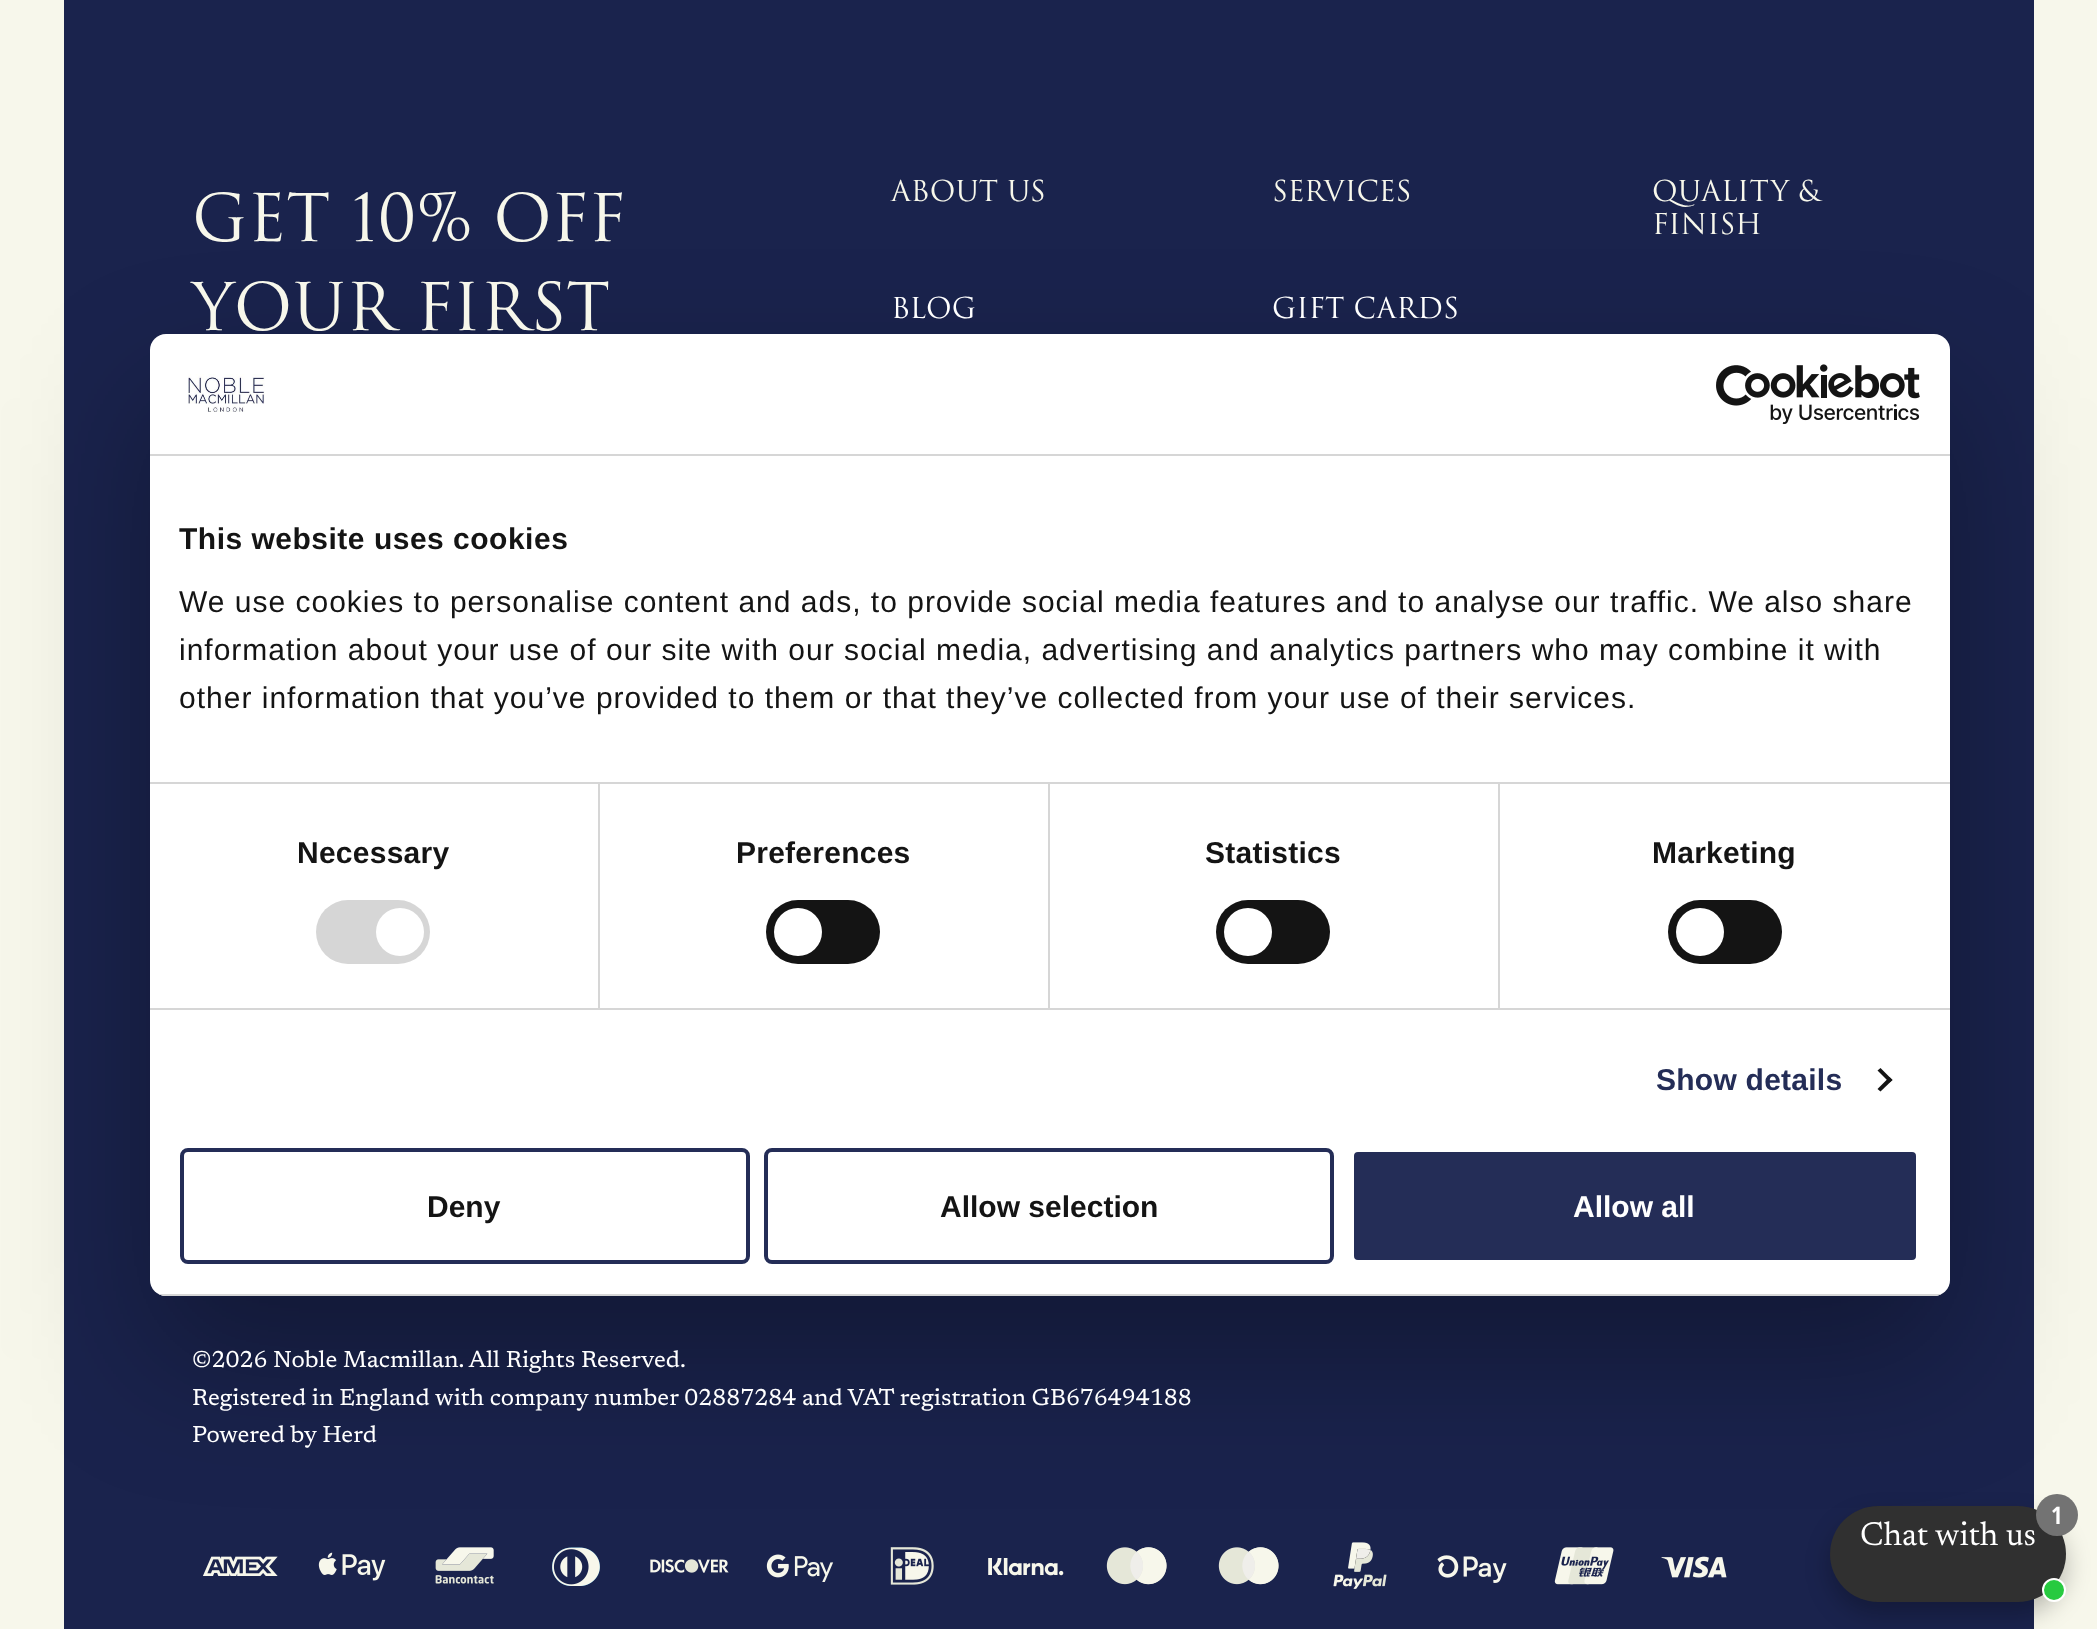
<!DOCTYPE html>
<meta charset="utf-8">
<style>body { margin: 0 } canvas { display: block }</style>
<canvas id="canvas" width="2097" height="1629"></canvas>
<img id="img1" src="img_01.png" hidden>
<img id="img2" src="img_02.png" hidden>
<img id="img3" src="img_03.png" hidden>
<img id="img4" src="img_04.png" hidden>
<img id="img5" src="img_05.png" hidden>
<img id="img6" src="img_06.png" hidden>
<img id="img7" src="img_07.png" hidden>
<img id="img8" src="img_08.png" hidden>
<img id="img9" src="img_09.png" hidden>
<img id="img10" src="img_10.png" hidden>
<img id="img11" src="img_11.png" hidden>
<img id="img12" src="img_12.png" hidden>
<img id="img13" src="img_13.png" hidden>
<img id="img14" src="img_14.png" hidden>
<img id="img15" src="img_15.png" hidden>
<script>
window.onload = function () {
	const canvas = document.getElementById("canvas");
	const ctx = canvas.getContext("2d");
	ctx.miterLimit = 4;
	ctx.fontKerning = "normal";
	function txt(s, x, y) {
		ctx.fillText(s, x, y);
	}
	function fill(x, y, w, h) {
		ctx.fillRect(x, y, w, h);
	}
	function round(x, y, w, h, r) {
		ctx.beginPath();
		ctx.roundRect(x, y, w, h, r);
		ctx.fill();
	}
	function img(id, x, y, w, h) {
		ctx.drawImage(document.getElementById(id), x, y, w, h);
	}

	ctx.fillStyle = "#1A234D";
	fill(0, 0, 2097, 1629);
	ctx.strokeStyle = "#F7F7EB";
	ctx.lineWidth = 64;
	ctx.strokeRect(32, -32, 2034, 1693);
	img("img1", 203, 1556, 75, 20);
	img("img2", 318, 1552, 68, 29);
	img("img3", 435, 1547, 59, 37);
	img("img4", 552, 1547, 48, 39);
	img("img5", 650, 1559, 79, 14);
	img("img6", 766, 1554, 68, 28);
	img("img7", 890, 1547, 44, 38);
	img("img8", 988, 1558, 76, 18);
	img("img9", 1106, 1547, 61, 38);
	img("img9", 1218, 1547, 61, 38);
	img("img10", 1333, 1542, 54, 47);
	img("img11", 1437, 1555, 70, 28);
	img("img12", 1554, 1547, 60, 38);
	img("img13", 1661, 1556, 66, 22);
	ctx.fillStyle = "rgba(0, 0, 0, 0.25)";
	ctx.filter = "blur(12px)";
	ctx.beginPath();
	ctx.roundRect(1830, 1518, 236, 96, 48);
	ctx.fill();
	ctx.filter = "none";
	ctx.fillStyle = "#303030";
	round(1830, 1506, 236, 96, 48);
	ctx.fillStyle = "#737373";
	ctx.beginPath();
	ctx.arc(2057, 1515, 21, 0, Math.PI * 2);
	ctx.fill();
	ctx.fillStyle = "rgba(0, 0, 0, 0.3)";
	ctx.filter = "blur(68px)";
	ctx.beginPath();
	ctx.roundRect(150, 398, 1800, 962, 16);
	ctx.fill();
	ctx.filter = "none";
	ctx.fillStyle = "#FFFFFF";
	round(150, 334, 1800, 962, 16);
	ctx.fillStyle = "#D6D6D6";
	fill(150, 454, 1800, 2);
	img("img14", 188, 374, 77, 38);
	img("img15", 1716, 364, 204, 60);
	fill(150, 782, 1800, 2);
	fill(150, 1008, 1800, 2);
	fill(598, 784, 2, 224);
	round(316, 900, 114, 64, 32);
	ctx.fillStyle = "#FFFFFF";
	ctx.beginPath();
	ctx.arc(400, 932, 24, 0, Math.PI * 2);
	ctx.fill();
	ctx.fillStyle = "#D6D6D6";
	fill(1048, 784, 2, 224);
	ctx.fillStyle = "#141414";
	round(766, 900, 114, 64, 32);
	ctx.fillStyle = "#FFFFFF";
	ctx.beginPath();
	ctx.arc(798, 932, 24, 0, Math.PI * 2);
	ctx.fill();
	ctx.fillStyle = "#D6D6D6";
	fill(1498, 784, 2, 224);
	ctx.fillStyle = "#141414";
	round(1216, 900, 114, 64, 32);
	ctx.fillStyle = "#FFFFFF";
	ctx.beginPath();
	ctx.arc(1248, 932, 24, 0, Math.PI * 2);
	ctx.fill();
	ctx.fillStyle = "#141414";
	round(1668, 900, 114, 64, 32);
	ctx.fillStyle = "#FFFFFF";
	ctx.beginPath();
	ctx.arc(1700, 932, 24, 0, Math.PI * 2);
	ctx.fill();
	ctx.fillStyle = "#141414";
	ctx.beginPath();
	ctx.moveTo(1880.5, 1068);
	ctx.lineTo(1892.5, 1080);
	ctx.lineTo(1889.5, 1082.5);
	ctx.lineTo(1877.5, 1070.5);
	ctx.closePath();
	ctx.fill();
	ctx.beginPath();
	ctx.moveTo(1889.5, 1077);
	ctx.lineTo(1892.5, 1080);
	ctx.lineTo(1880.5, 1091.5);
	ctx.lineTo(1877.5, 1089);
	ctx.closePath();
	ctx.fill();
	ctx.save();
	ctx.beginPath();
	ctx.roundRect(150, 334, 1800, 962, 16);
	ctx.clip();
	ctx.fillStyle = "#D6D6D6";
	fill(150, 1294, 1800, 2);
	ctx.restore();
	ctx.beginPath();
	ctx.roundRect(182, 1150, 566, 112, 6);
	ctx.strokeStyle = "#242D57";
	ctx.lineWidth = 4;
	ctx.stroke();
	ctx.beginPath();
	ctx.roundRect(766, 1150, 566, 112, 6);
	ctx.stroke();
	ctx.fillStyle = "#242D57";
	ctx.beginPath();
	ctx.roundRect(1352, 1150, 566, 112, 6);
	ctx.fill();
	ctx.strokeStyle = "#FFFFFF";
	ctx.stroke();
	ctx.fillStyle = "#27CA40";
	ctx.beginPath();
	ctx.arc(2054, 1590, 11, 0, Math.PI * 2);
	ctx.fill();
	ctx.lineWidth = 2;
	ctx.stroke();
	ctx.font = "64px 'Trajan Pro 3'";
	ctx.fillStyle = "#F7F7EB";
	txt("GET 10% OFF", 192, 241);
	txt("YOUR FIRST", 192, 330);
	ctx.font = "28px 'Trajan Pro 3'";
	txt("ABOUT US", 891, 201);
	ctx.fillStyle = "#FFFFFF";
	txt("BLOG", 891, 318);
	ctx.fillStyle = "#F7F7EB";
	txt("SERVICES", 1272, 201);
	ctx.fillStyle = "#FFFFFF";
	txt("GIFT CARDS", 1272, 318);
	ctx.fillStyle = "#F7F7EB";
	txt("QUALITY &", 1652, 201);
	txt("FINISH", 1652, 234);
	ctx.font = "23.2px Newsreader";
	ctx.fillStyle = "#FFFFFF";
	txt("©2026 Noble Macmillan. All Rights Reserved.", 192, 1367);
	txt("Registered in England with company number 02887284 and VAT registration GB676494188", 192, 1405);
	txt("Powered by Herd", 192, 1442);
	ctx.letterSpacing = "0.5px";
	ctx.font = "bold 30px Liberation Sans";
	ctx.fillStyle = "#141414";
	txt("This website uses cookies", 179, 549);
	ctx.letterSpacing = "1px";
	ctx.font = "30px Liberation Sans";
	txt("We use cookies to personalise content and ads, to provide social media features and to analyse our traffic. We also share", 179, 612);
	txt("information about your use of our site with our social media, advertising and analytics partners who may combine it with", 179, 660);
	txt("other information that you’ve provided to them or that they’ve collected from your use of their services.", 179, 708);
	ctx.letterSpacing = "0.25px";
	ctx.font = "bold 30px Liberation Sans";
	txt("Necessary", 297, 863);
	txt("Preferences", 736, 863);
	txt("Statistics", 1205, 863);
	txt("Marketing", 1652, 863);
	ctx.fillStyle = "#242D57";
	txt("Show details", 1656, 1090);
	ctx.letterSpacing = "0px";
	ctx.fillStyle = "#141414";
	txt("Deny", 427, 1217);
	txt("Allow selection", 940, 1217);
	ctx.fillStyle = "#FFFFFF";
	txt("Allow all", 1573, 1217);
	ctx.font = "bold 24px Open Sans Condensed";
	txt("1", 2051, 1524);
	ctx.font = "33.5px 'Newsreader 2'";
	txt("Chat with us", 1860, 1545);
};
</script>
